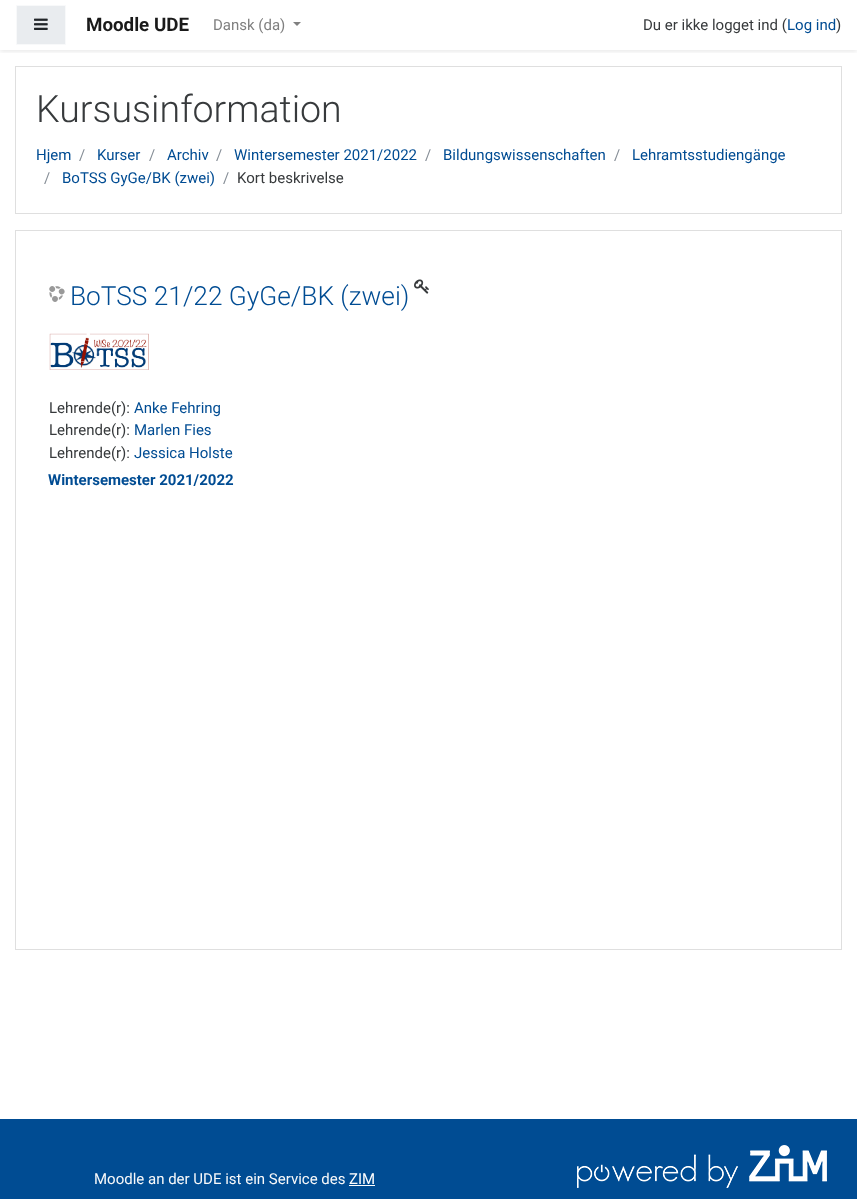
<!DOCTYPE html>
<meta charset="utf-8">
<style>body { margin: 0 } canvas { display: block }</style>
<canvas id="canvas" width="857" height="1199"></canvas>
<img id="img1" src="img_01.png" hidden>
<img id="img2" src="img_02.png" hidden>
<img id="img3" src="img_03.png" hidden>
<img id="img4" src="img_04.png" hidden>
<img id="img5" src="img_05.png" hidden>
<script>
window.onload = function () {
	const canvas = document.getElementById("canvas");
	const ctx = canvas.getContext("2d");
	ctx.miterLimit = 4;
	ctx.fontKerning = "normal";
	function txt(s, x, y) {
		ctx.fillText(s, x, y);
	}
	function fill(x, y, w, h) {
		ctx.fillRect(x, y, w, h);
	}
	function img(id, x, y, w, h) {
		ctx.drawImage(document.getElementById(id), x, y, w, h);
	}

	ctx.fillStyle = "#FFFFFF";
	fill(0, 0, 857, 1199);
	ctx.save();
	ctx.beginPath();
	ctx.rect(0, 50, 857, 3);
	ctx.clip();
	ctx.fillStyle = "rgba(0, 0, 0, 0.08)";
	ctx.filter = "blur(2px)";
	ctx.beginPath();
	ctx.rect(0, 2, 857, 50);
	ctx.fill();
	ctx.filter = "none";
	ctx.restore();
	ctx.fillStyle = "#E9ECEF";
	ctx.beginPath();
	ctx.rect(16.5, 5.5, 49, 39);
	ctx.fill();
	ctx.strokeStyle = "#F8F9FA";
	ctx.stroke();
	img("img1", 34, 18, 14, 12);
	ctx.fillStyle = "#808080";
	ctx.beginPath();
	ctx.moveTo(293, 22);
	ctx.lineTo(301, 22);
	ctx.lineTo(297, 26);
	ctx.closePath();
	ctx.fill();
	ctx.strokeStyle = "#DFDFDF";
	ctx.strokeRect(15.5, 66.5, 826, 147);
	ctx.strokeRect(15.5, 230.5, 826, 719);
	img("img2", 49, 286, 16, 16);
	img("img3", 414, 279, 15, 15);
	img("img4", 49, 333, 100, 37);
	ctx.fillStyle = "#004C93";
	fill(0, 1119, 857, 80);
	ctx.fillStyle = "#FFFFFF";
	fill(349, 1185, 26, 1);
	img("img5", 577, 1145, 250, 43);
	ctx.font = "bold 18.75px Roboto";
	ctx.fillStyle = "#1A1A1A";
	txt("Moodle UDE", 86, 31);
	ctx.font = "15px Roboto";
	ctx.fillStyle = "#808080";
	txt("Dansk (da)", 213, 30);
	ctx.fillStyle = "#373A3C";
	txt("Du er ikke logget ind (", 643, 30);
	ctx.fillStyle = "#004C93";
	txt("Log ind", 787, 30);
	ctx.fillStyle = "#373A3C";
	txt(")", 836, 30);
	ctx.font = "300 37.5px Roboto";
	txt("Kursusinformation", 36, 122);
	ctx.font = "15px Roboto";
	ctx.fillStyle = "#004C93";
	txt("Hjem", 36, 160);
	ctx.fillStyle = "#868E96";
	txt("/", 79, 160);
	ctx.fillStyle = "#004C93";
	txt("Kurser", 97, 160);
	ctx.fillStyle = "#868E96";
	txt("/", 149, 160);
	ctx.fillStyle = "#004C93";
	txt("Archiv", 167, 160);
	ctx.fillStyle = "#868E96";
	txt("/", 216, 160);
	ctx.fillStyle = "#004C93";
	txt("Wintersemester 2021/2022", 234, 160);
	ctx.fillStyle = "#868E96";
	txt("/", 425, 160);
	ctx.fillStyle = "#004C93";
	txt("Bildungswissenschaften", 443, 160);
	ctx.fillStyle = "#868E96";
	txt("/", 614, 160);
	ctx.fillStyle = "#004C93";
	txt("Lehramtsstudiengänge", 632, 160);
	ctx.fillStyle = "#868E96";
	txt("/", 44, 183);
	ctx.fillStyle = "#004C93";
	txt("BoTSS GyGe/BK (zwei)", 62, 183);
	ctx.fillStyle = "#868E96";
	txt("/", 223, 183);
	ctx.fillStyle = "#373A3C";
	txt("Kort beskrivelse", 237, 183);
	ctx.font = "300 26.25px Roboto";
	ctx.fillStyle = "#004C93";
	txt("BoTSS 21/22 GyGe/BK (zwei)", 70, 305);
	ctx.font = "15px Roboto";
	ctx.fillStyle = "#373A3C";
	txt("Lehrende(r):", 49, 413);
	ctx.fillStyle = "#004C93";
	txt("Anke Fehring", 134, 413);
	ctx.fillStyle = "#373A3C";
	txt("Lehrende(r):", 49, 435);
	ctx.fillStyle = "#004C93";
	txt("Marlen Fies", 134, 435);
	ctx.fillStyle = "#373A3C";
	txt("Lehrende(r):", 49, 458);
	ctx.fillStyle = "#004C93";
	txt("Jessica Holste", 134, 458);
	ctx.font = "bold 15px Roboto";
	txt("Wintersemester 2021/2022", 48, 485);
	ctx.font = "15px Roboto";
	ctx.fillStyle = "#F8F9FA";
	txt("Moodle an der UDE ist ein Service des", 94, 1184);
	ctx.fillStyle = "#FFFFFF";
	txt("ZIM", 349, 1184);
};
</script>
